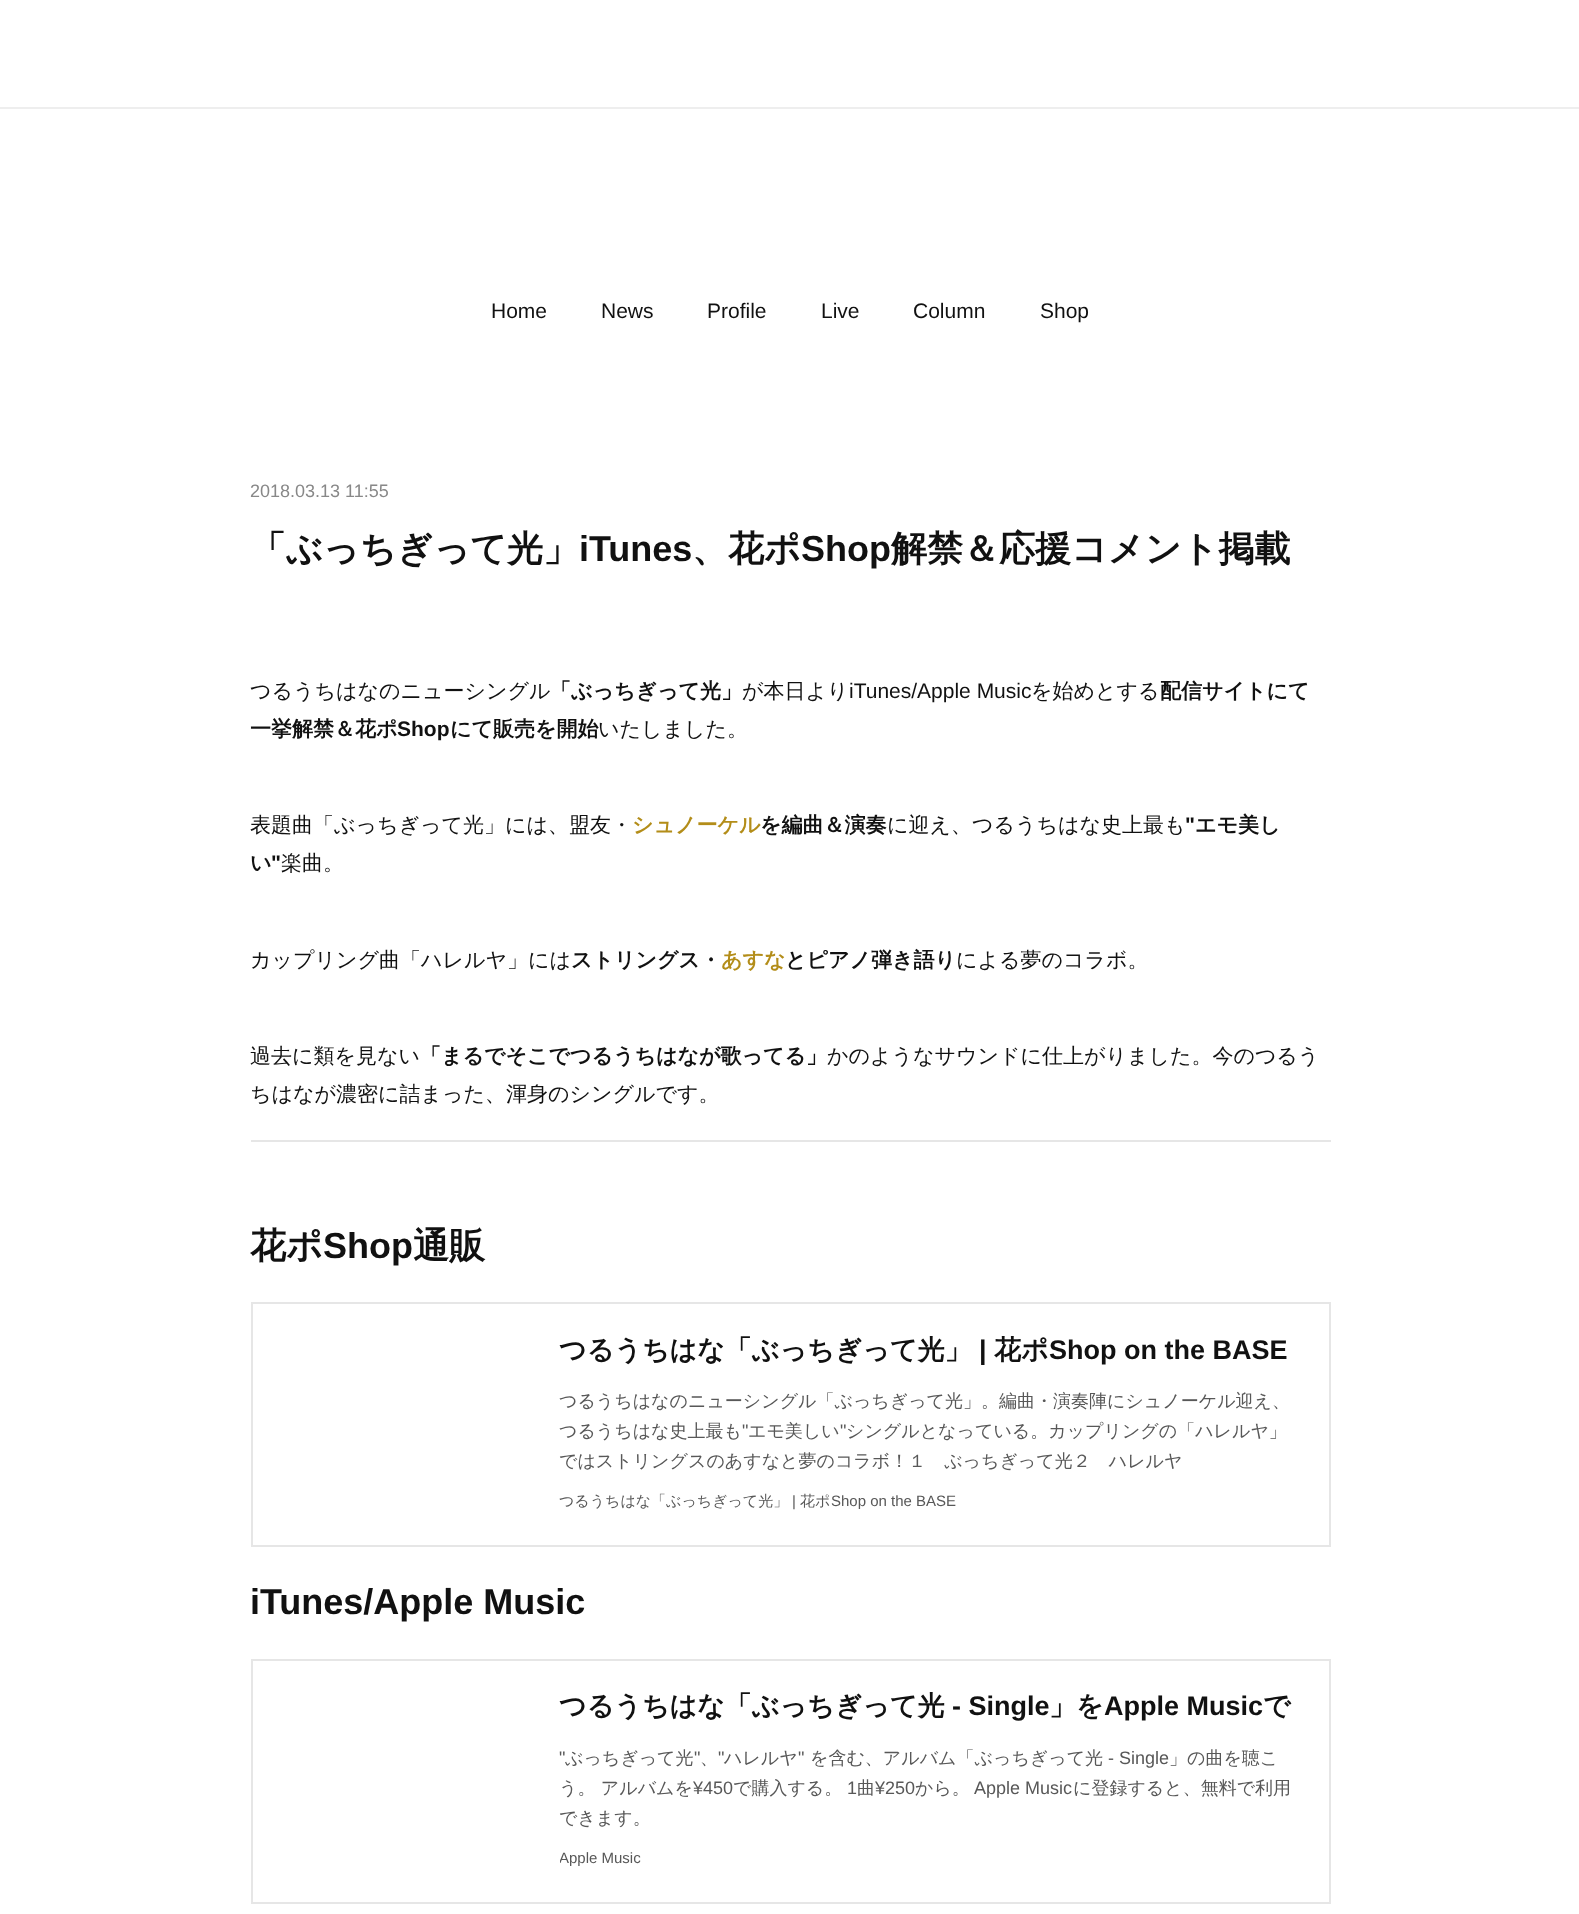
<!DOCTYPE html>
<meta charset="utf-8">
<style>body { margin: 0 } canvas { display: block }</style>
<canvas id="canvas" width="1579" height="1914"></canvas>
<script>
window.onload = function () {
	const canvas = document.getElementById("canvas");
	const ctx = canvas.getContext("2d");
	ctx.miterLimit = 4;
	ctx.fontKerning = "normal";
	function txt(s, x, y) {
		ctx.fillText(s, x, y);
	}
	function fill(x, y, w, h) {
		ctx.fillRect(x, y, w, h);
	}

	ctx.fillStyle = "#FFFFFF";
	fill(0, 0, 1579, 1914);
	ctx.fillStyle = "#EEEEEE";
	fill(0, 107, 1579, 2);
	ctx.fillStyle = "#E6E6E6";
	fill(251, 1140, 1080, 2);
	ctx.strokeStyle = "#E6E6E6";
	ctx.lineWidth = 2;
	ctx.strokeRect(252, 1303, 1078, 243);
	ctx.strokeRect(252, 1660, 1078, 243);
	ctx.font = "21px Liberation Sans";
	ctx.fillStyle = "#111111";
	txt("Home", 491, 318);
	txt("News", 601, 318);
	txt("Profile", 707, 318);
	txt("Live", 821, 318);
	txt("Column", 913, 318);
	txt("Shop", 1040, 318);
	ctx.font = "18px Liberation Sans";
	ctx.fillStyle = "#888888";
	txt("2018.03.13 11:55", 250, 497);
	ctx.font = "bold 36px WenQuanYi Zen Hei";
	ctx.fillStyle = "#111111";
	txt("「ぶっちぎって光」", 250, 561);
	ctx.font = "bold 36px Liberation Sans";
	txt("iTunes", 579, 561);
	ctx.font = "bold 36px WenQuanYi Zen Hei";
	txt("、花ポ", 692, 561);
	ctx.font = "bold 36px Liberation Sans";
	txt("Shop", 801, 561);
	ctx.font = "bold 36px WenQuanYi Zen Hei";
	txt("解禁＆応援コメント掲載", 891, 561);
	ctx.font = "500 21px WenQuanYi Zen Hei";
	txt("つるうちはなのニューシングル", 250, 698);
	ctx.font = "bold 21px WenQuanYi Zen Hei";
	txt("「ぶっちぎって光」", 550, 698);
	ctx.font = "500 21px WenQuanYi Zen Hei";
	txt("が本日より", 742, 698);
	ctx.font = "21px Liberation Sans";
	txt("iTunes/Apple Music", 849, 698);
	ctx.font = "500 21px WenQuanYi Zen Hei";
	txt("を始めとする", 1031, 698);
	ctx.font = "bold 21px WenQuanYi Zen Hei";
	txt("配信サイトにて", 1160, 698);
	txt("一挙解禁＆花ポ", 250, 736);
	ctx.font = "bold 21px Liberation Sans";
	txt("Shop", 397, 736);
	ctx.font = "bold 21px WenQuanYi Zen Hei";
	txt("にて販売を開始", 450, 736);
	ctx.font = "500 21px WenQuanYi Zen Hei";
	txt("いたしました。", 598, 736);
	txt("表題曲「ぶっちぎって光」には、盟友・", 250, 832);
	ctx.font = "bold 21px WenQuanYi Zen Hei";
	ctx.fillStyle = "#B38D19";
	txt("シュノーケル", 632, 832);
	ctx.fillStyle = "#111111";
	txt("を編曲＆演奏", 760, 832);
	ctx.font = "500 21px WenQuanYi Zen Hei";
	txt("に迎え、つるうちはな史上最も", 887, 832);
	ctx.font = "bold 21px Liberation Sans";
	txt("\"", 1185, 832);
	ctx.font = "bold 21px WenQuanYi Zen Hei";
	txt("エモ美し", 1195, 832);
	txt("い", 250, 870);
	ctx.font = "bold 21px Liberation Sans";
	txt("\"", 271, 870);
	ctx.font = "500 21px WenQuanYi Zen Hei";
	txt("楽曲。", 281, 870);
	txt("カップリング曲「ハレルヤ」には", 250, 967);
	ctx.font = "bold 21px WenQuanYi Zen Hei";
	txt("ストリングス・", 571, 967);
	ctx.fillStyle = "#B38D19";
	txt("あすな", 721, 967);
	ctx.fillStyle = "#111111";
	txt("とピアノ弾き語り", 785, 967);
	ctx.font = "500 21px WenQuanYi Zen Hei";
	txt("による夢のコラボ。", 956, 967);
	txt("過去に類を見ない", 250, 1063);
	ctx.font = "bold 21px WenQuanYi Zen Hei";
	txt("「まるでそこでつるうちはなが歌ってる」", 420, 1063);
	ctx.font = "500 21px WenQuanYi Zen Hei";
	txt("かのようなサウンドに仕上がりました。今のつるう", 827, 1063);
	txt("ちはなが濃密に詰まった、渾身のシングルです。", 250, 1101);
	ctx.font = "bold 36px WenQuanYi Zen Hei";
	txt("花ポ", 250, 1258);
	ctx.font = "bold 36px Liberation Sans";
	txt("Shop", 323, 1258);
	ctx.font = "bold 36px WenQuanYi Zen Hei";
	txt("通販", 413, 1258);
	ctx.font = "bold 27px WenQuanYi Zen Hei";
	txt("つるうちはな「ぶっちぎって光」", 559, 1359);
	ctx.font = "bold 27px Liberation Sans";
	txt("|", 979, 1359);
	ctx.font = "bold 27px WenQuanYi Zen Hei";
	txt("花ポ", 994, 1359);
	ctx.font = "bold 27px Liberation Sans";
	txt("Shop on the BASE", 1049, 1359);
	ctx.font = "500 18px WenQuanYi Zen Hei";
	ctx.fillStyle = "#585858";
	txt("つるうちはなのニューシングル「ぶっちぎって光」。編曲・演奏陣にシュノーケル迎え、", 559, 1407);
	txt("つるうちはな史上最も", 559, 1437);
	ctx.font = "18px Liberation Sans";
	txt("\"", 742, 1437);
	ctx.font = "500 18px WenQuanYi Zen Hei";
	txt("エモ美しい", 748, 1437);
	ctx.font = "18px Liberation Sans";
	txt("\"", 840, 1437);
	ctx.font = "500 18px WenQuanYi Zen Hei";
	txt("シングルとなっている。カップリングの「ハレルヤ」", 846, 1437);
	txt("ではストリングスのあすなと夢のコラボ！１　ぶっちぎって光２　ハレルヤ", 559, 1467);
	ctx.font = "500 15px WenQuanYi Zen Hei";
	txt("つるうちはな「ぶっちぎって光」", 559, 1506);
	ctx.font = "15px Liberation Sans";
	txt("|", 792, 1506);
	ctx.font = "500 15px WenQuanYi Zen Hei";
	txt("花ポ", 800, 1506);
	ctx.font = "15px Liberation Sans";
	txt("Shop on the BASE", 831, 1506);
	ctx.font = "bold 36px Liberation Sans";
	ctx.fillStyle = "#111111";
	txt("iTunes/Apple Music", 250, 1614);
	ctx.font = "bold 27px WenQuanYi Zen Hei";
	txt("つるうちはな「ぶっちぎって光", 559, 1715);
	ctx.font = "bold 27px Liberation Sans";
	txt("- Single", 952, 1715);
	ctx.font = "bold 27px WenQuanYi Zen Hei";
	txt("」を", 1049, 1715);
	ctx.font = "bold 27px Liberation Sans";
	txt("Apple Music", 1104, 1715);
	ctx.font = "bold 27px WenQuanYi Zen Hei";
	txt("で", 1263, 1715);
	ctx.font = "18px Liberation Sans";
	ctx.fillStyle = "#585858";
	txt("\"", 559, 1764);
	ctx.font = "500 18px WenQuanYi Zen Hei";
	txt("ぶっちぎって光", 565, 1764);
	ctx.font = "18px Liberation Sans";
	txt("\"", 694, 1764);
	txt("\"", 718, 1764);
	ctx.font = "500 18px WenQuanYi Zen Hei";
	txt("ハレルヤ", 724, 1764);
	ctx.font = "18px Liberation Sans";
	txt("\"", 798, 1764);
	ctx.font = "500 18px WenQuanYi Zen Hei";
	txt("を含む、アルバム「ぶっちぎって光", 810, 1764);
	ctx.font = "18px Liberation Sans";
	txt("- Single", 1108, 1764);
	ctx.font = "500 18px WenQuanYi Zen Hei";
	txt("」の曲を聴こ", 1169, 1764);
	txt("、", 700, 1764);
	txt("う。 アルバムを", 559, 1794);
	ctx.font = "18px Liberation Sans";
	txt("¥450", 693, 1794);
	ctx.font = "500 18px WenQuanYi Zen Hei";
	txt("で購入する。", 733, 1794);
	ctx.font = "18px Liberation Sans";
	txt("1", 847, 1794);
	ctx.font = "500 18px WenQuanYi Zen Hei";
	txt("曲", 857, 1794);
	ctx.font = "18px Liberation Sans";
	txt("¥250", 875, 1794);
	ctx.font = "500 18px WenQuanYi Zen Hei";
	txt("から。", 915, 1794);
	ctx.font = "18px Liberation Sans";
	txt("Apple Music", 974, 1794);
	ctx.font = "500 18px WenQuanYi Zen Hei";
	txt("に登録すると、無料で利用", 1073, 1794);
	txt("できます。", 559, 1824);
	ctx.save();
	ctx.beginPath();
	ctx.rect(560, 1845, 739, 27);
	ctx.clip();
	ctx.font = "15px Liberation Sans";
	txt("Apple Music", 559, 1863);
	ctx.restore();
};
</script>
